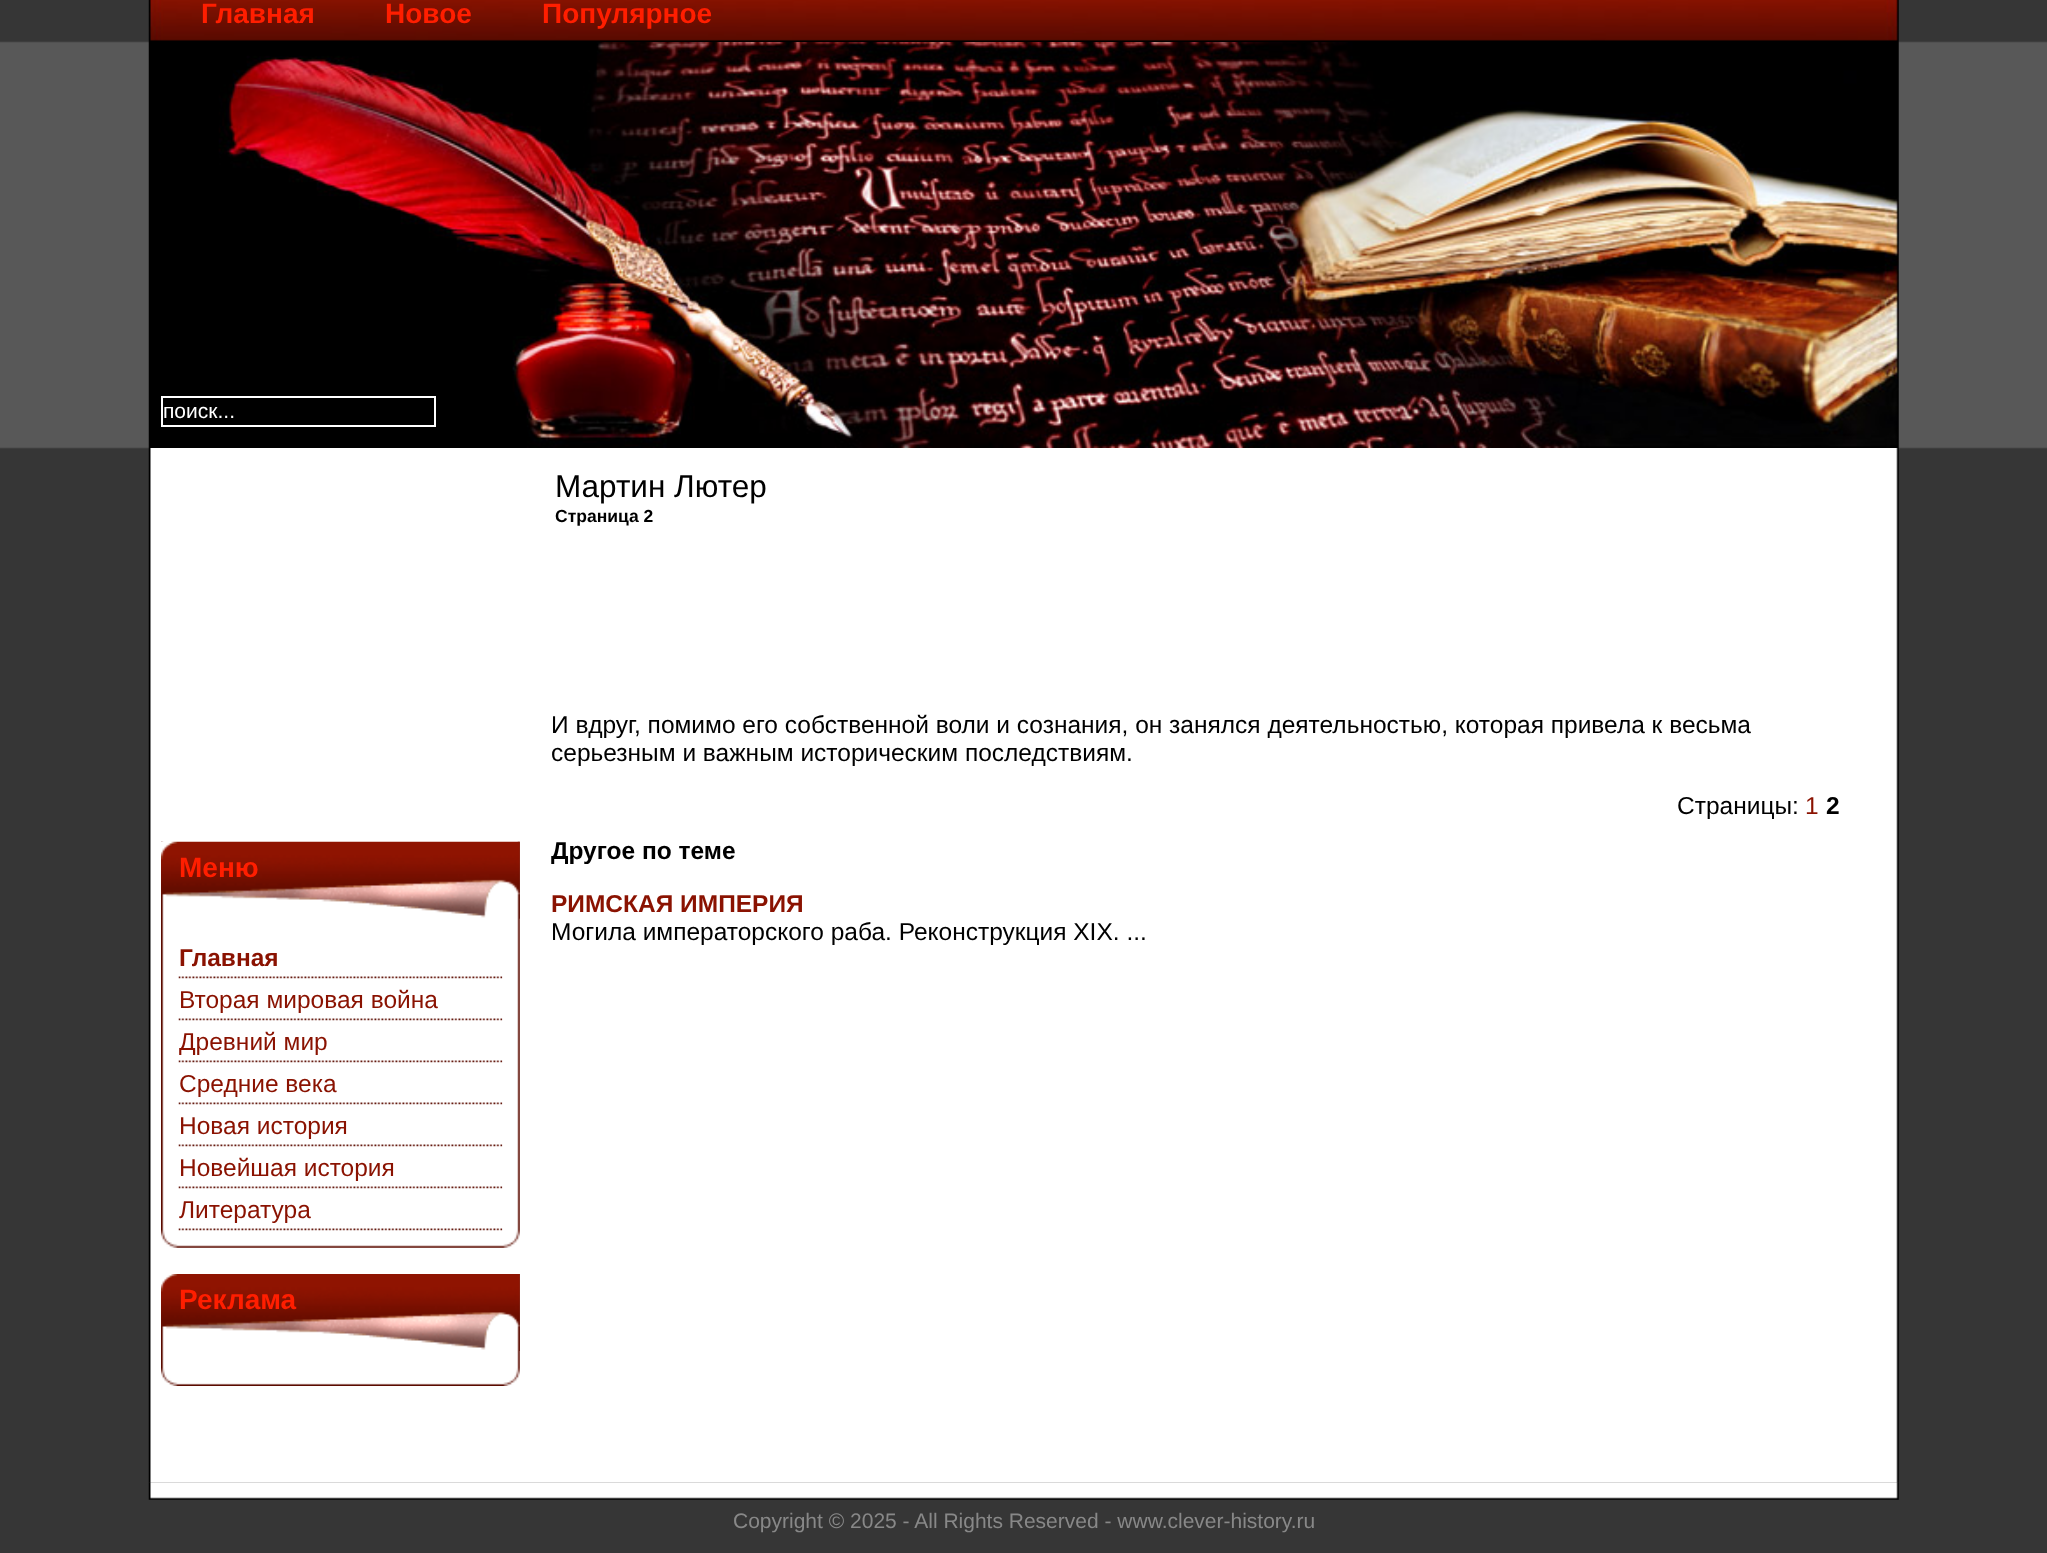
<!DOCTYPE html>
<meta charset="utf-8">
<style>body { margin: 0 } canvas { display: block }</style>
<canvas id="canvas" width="2047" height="1553"></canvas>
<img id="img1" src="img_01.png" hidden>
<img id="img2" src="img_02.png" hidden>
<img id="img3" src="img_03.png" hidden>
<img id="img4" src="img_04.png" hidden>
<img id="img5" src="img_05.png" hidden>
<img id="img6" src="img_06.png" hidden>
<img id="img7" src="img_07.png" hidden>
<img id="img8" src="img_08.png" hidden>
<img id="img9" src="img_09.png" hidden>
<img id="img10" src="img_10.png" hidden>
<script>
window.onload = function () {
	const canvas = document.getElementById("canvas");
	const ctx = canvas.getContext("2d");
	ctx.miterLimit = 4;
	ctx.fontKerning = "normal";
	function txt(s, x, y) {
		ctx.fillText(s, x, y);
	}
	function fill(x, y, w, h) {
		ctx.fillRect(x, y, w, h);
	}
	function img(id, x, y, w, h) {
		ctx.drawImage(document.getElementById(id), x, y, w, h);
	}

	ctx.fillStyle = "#363636";
	fill(0, 0, 2047, 1553);
	img("img1", 0, 41, 2047, 408);
	img("img2", 148, 0, 1751, 42);
	img("img3", 148, 42, 1751, 406);
	ctx.strokeStyle = "#FFFFFF";
	ctx.lineWidth = 2;
	ctx.strokeRect(162, 397, 273, 29);
	img("img4", 148, 448, 1751, 1035);
	img("img5", 161, 841, 359, 407);
	img("img6", 161, 841, 359, 78);
	img("img7", 178, 976, 325, 3);
	img("img7", 178, 1018, 325, 3);
	img("img7", 178, 1060, 325, 3);
	img("img7", 178, 1102, 325, 3);
	img("img7", 178, 1144, 325, 3);
	img("img7", 178, 1186, 325, 3);
	img("img7", 178, 1228, 325, 3);
	img("img8", 161, 1274, 359, 112);
	img("img9", 161, 1274, 359, 77);
	img("img10", 148, 1482, 1751, 18);
	ctx.font = "bold 28px Liberation Sans";
	ctx.fillStyle = "#FF1E00";
	txt("Главная", 201, 23);
	txt("Новое", 385, 23);
	txt("Популярное", 542, 23);
	ctx.font = "21px Liberation Sans";
	ctx.fillStyle = "#FFFFFF";
	txt("поиск...", 163, 418);
	ctx.font = "31.5px Liberation Sans";
	ctx.fillStyle = "#000000";
	txt("Мартин Лютер", 555, 497);
	ctx.font = "bold 17.5px Liberation Sans";
	txt("Страница 2", 555, 522);
	ctx.font = "24.5px Liberation Sans";
	txt("И вдруг, помимо его собственной воли и сознания, он занялся деятельностью, которая привела к весьма", 551, 733);
	txt("серьезным и важным историческим последствиям.", 551, 761);
	txt("Страницы:", 1677, 814);
	ctx.fillStyle = "#8A1201";
	txt("1", 1805, 814);
	ctx.font = "bold 24.5px Liberation Sans";
	ctx.fillStyle = "#000000";
	txt("2", 1826, 814);
	txt("Другое по теме", 551, 859);
	ctx.fillStyle = "#8A1201";
	txt("РИМСКАЯ ИМПЕРИЯ", 551, 912);
	ctx.font = "24.5px Liberation Sans";
	ctx.fillStyle = "#000000";
	txt("Могила императорского раба. Реконструкция XIX. ...", 551, 940);
	ctx.font = "bold 28px Liberation Sans";
	ctx.fillStyle = "#FF1E00";
	txt("Меню", 179, 877);
	ctx.font = "bold 24.5px Liberation Sans";
	ctx.fillStyle = "#8A1201";
	txt("Главная", 179, 966);
	ctx.font = "24.5px Liberation Sans";
	txt("Вторая мировая война", 179, 1008);
	txt("Древний мир", 179, 1050);
	txt("Средние века", 179, 1092);
	txt("Новая история", 179, 1134);
	txt("Новейшая история", 179, 1176);
	txt("Литература", 179, 1218);
	ctx.font = "bold 28px Liberation Sans";
	ctx.fillStyle = "#FF1E00";
	txt("Реклама", 179, 1309);
	ctx.font = "21px Liberation Sans";
	ctx.fillStyle = "#888888";
	txt("Copyright © 2025 - All Rights Reserved - www.clever-history.ru", 733, 1528);
};
</script>
